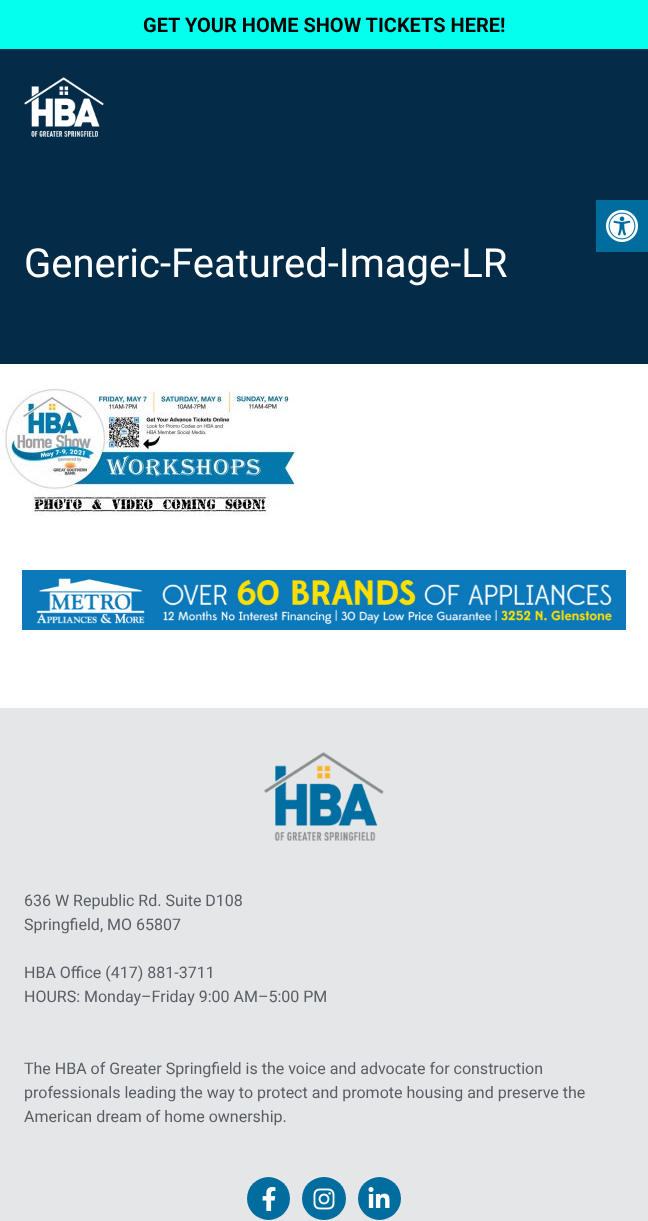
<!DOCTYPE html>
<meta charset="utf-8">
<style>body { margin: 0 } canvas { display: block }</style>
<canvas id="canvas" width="648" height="1221"></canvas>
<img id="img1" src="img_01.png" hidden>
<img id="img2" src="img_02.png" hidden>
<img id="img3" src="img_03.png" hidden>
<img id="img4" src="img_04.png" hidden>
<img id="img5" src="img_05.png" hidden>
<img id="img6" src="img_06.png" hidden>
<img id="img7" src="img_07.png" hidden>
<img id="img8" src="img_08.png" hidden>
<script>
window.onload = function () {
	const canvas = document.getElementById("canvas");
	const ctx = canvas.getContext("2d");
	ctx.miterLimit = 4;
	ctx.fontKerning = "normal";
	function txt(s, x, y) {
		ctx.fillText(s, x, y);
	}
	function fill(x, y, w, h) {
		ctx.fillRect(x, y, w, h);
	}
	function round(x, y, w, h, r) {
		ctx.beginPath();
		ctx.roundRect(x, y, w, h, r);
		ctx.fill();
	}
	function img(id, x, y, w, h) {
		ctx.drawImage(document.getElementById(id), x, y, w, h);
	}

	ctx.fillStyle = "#FFFFFF";
	fill(0, 0, 648, 1221);
	ctx.fillStyle = "#05FFEE";
	fill(0, 0, 648, 49);
	ctx.fillStyle = "#042C48";
	fill(0, 49, 648, 315);
	img("img1", 24, 77, 80, 60);
	ctx.fillStyle = "#006D9E";
	fill(596, 200, 52, 52);
	img("img2", 606, 210, 32, 32);
	img("img3", 0, 380, 300, 136);
	img("img4", 22, 570, 604, 60);
	ctx.fillStyle = "#E4E6E8";
	fill(0, 708, 648, 513);
	img("img5", 264, 752, 120, 89);
	ctx.fillStyle = "#006D9E";
	ctx.beginPath();
	ctx.arc(268.5, 1198.5, 21.5, 0, Math.PI * 2);
	ctx.fill();
	img("img6", 262, 1187, 14, 24);
	round(302, 1177, 44, 43, 21.5);
	img("img7", 313, 1188, 22, 22);
	ctx.beginPath();
	ctx.arc(379.5, 1198.5, 21.5, 0, Math.PI * 2);
	ctx.fill();
	img("img8", 368, 1187, 22, 21);
	ctx.font = "bold 20px Roboto";
	ctx.fillStyle = "#050505";
	txt("GET YOUR HOME SHOW TICKETS HERE!", 143, 32);
	ctx.font = "40px Roboto";
	ctx.fillStyle = "#FFFFFF";
	txt("Generic-Featured-Image-LR", 24, 277);
	ctx.font = "16px Roboto";
	ctx.fillStyle = "#595E65";
	txt("636 W Republic Rd. Suite D108", 24, 906);
	txt("Springfield, MO 65807", 24, 930);
	txt("HBA Office (417) 881-3711", 24, 978);
	txt("HOURS: Monday–Friday 9:00 AM–5:00 PM", 24, 1002);
	txt("The HBA of Greater Springfield is the voice and advocate for construction", 24, 1074);
	txt("professionals leading the way to protect and promote housing and preserve the", 24, 1098);
	txt("American dream of home ownership.", 24, 1122);
};
</script>
